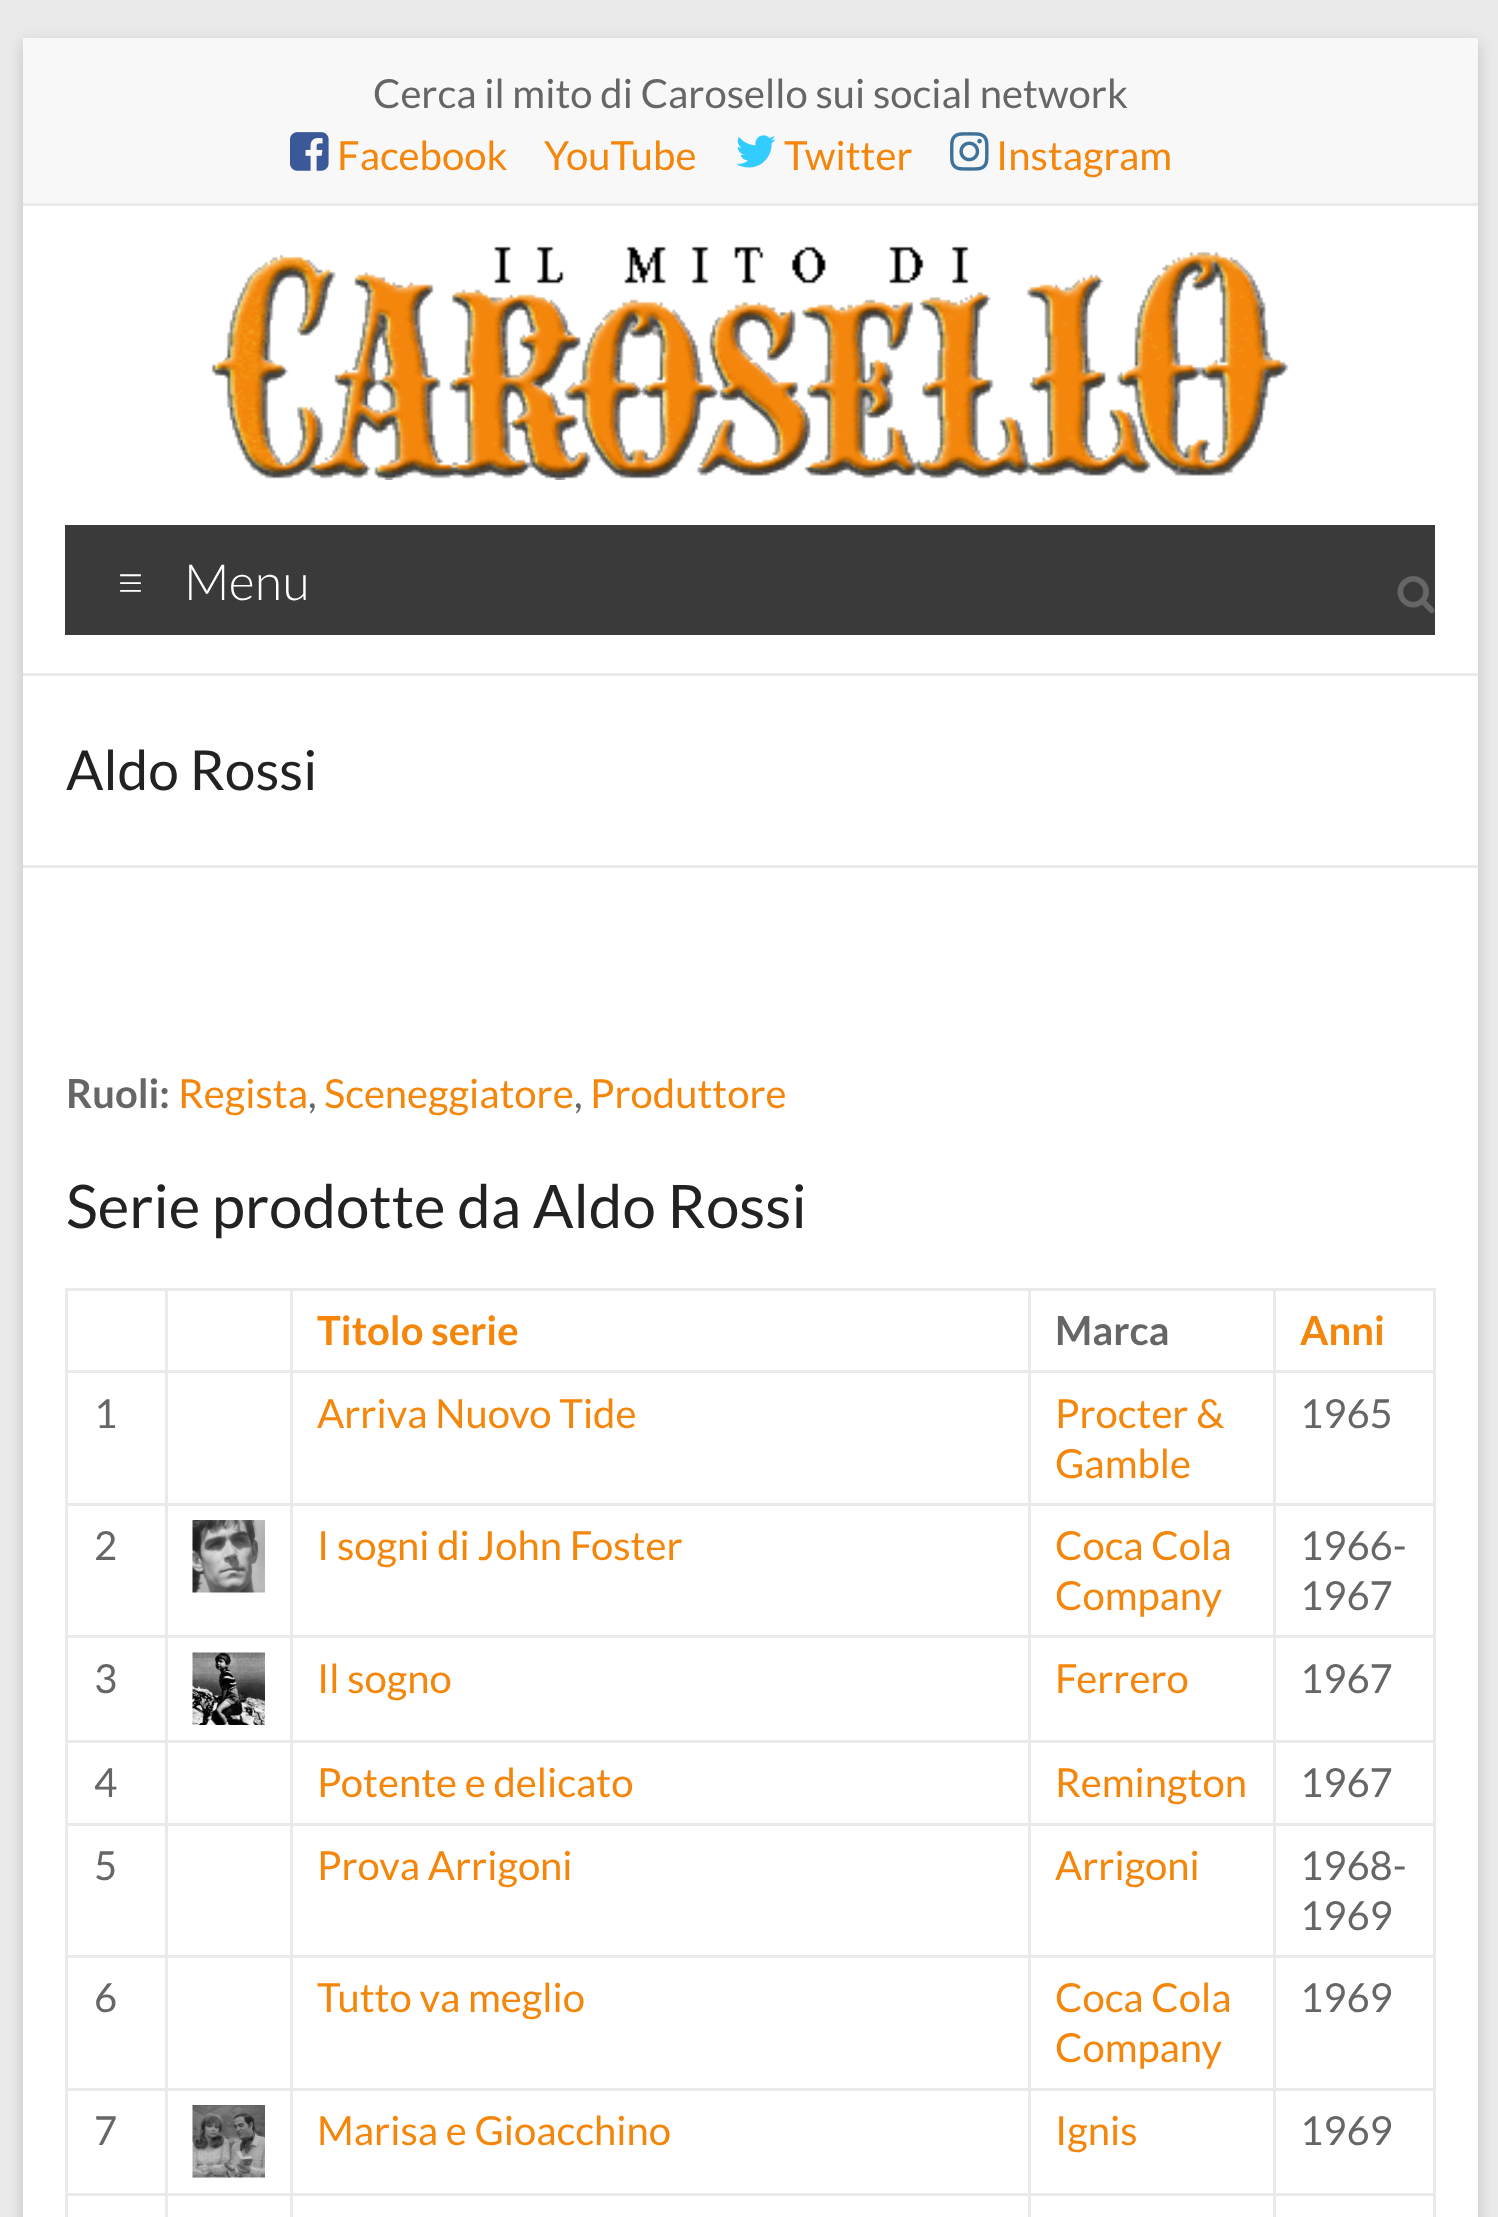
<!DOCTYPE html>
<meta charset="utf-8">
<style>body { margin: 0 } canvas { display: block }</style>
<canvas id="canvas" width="1498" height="2217"></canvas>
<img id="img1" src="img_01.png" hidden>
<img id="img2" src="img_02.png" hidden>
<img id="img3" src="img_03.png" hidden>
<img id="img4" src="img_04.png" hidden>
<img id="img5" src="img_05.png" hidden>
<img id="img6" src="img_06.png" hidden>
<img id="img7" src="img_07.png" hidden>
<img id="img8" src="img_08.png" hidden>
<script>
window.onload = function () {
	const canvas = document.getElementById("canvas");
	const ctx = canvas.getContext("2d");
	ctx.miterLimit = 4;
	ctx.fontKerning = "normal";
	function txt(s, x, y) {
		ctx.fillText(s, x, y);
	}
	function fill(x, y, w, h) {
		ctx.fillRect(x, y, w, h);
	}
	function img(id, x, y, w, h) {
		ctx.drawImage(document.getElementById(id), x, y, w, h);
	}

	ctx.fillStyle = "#EAEAEA";
	fill(0, 0, 1498, 2217);
	ctx.fillStyle = "rgba(100, 100, 100, 0.3)";
	ctx.filter = "blur(7.5px)";
	ctx.beginPath();
	ctx.rect(23, 43, 1455, 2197);
	ctx.fill();
	ctx.filter = "none";
	ctx.fillStyle = "#FFFFFF";
	fill(23, 206, 1455, 2011);
	ctx.fillStyle = "#F8F8F8";
	fill(23, 38, 1455, 165);
	ctx.fillStyle = "#EAEAEA";
	fill(23, 203, 1455, 3);
	img("img1", 290, 132, 39, 39);
	img("img2", 736, 135, 40, 33);
	img("img3", 950, 132, 39, 39);
	fill(23, 673, 1455, 3);
	img("img4", 211, 246, 1078, 234);
	ctx.fillStyle = "#3A3A3A";
	fill(65, 525, 1370, 110);
	img("img5", 1397, 576, 38, 38);
	ctx.fillStyle = "#EAEAEA";
	fill(23, 865, 1455, 3);
	fill(1273, 1288, 162, 3);
	fill(1273, 1370, 162, 3);
	fill(1273, 1503, 162, 3);
	fill(1273, 1635, 162, 3);
	fill(1273, 1740, 162, 3);
	fill(1273, 1823, 162, 3);
	fill(1273, 1955, 162, 3);
	fill(1273, 2088, 162, 3);
	fill(1273, 2193, 162, 3);
	fill(1273, 2193, 3, 24);
	fill(1028, 2193, 247, 3);
	fill(1273, 2088, 3, 107);
	fill(1028, 2088, 247, 3);
	fill(1273, 1955, 3, 135);
	fill(1028, 1955, 247, 3);
	fill(1273, 1823, 3, 135);
	fill(1028, 1823, 247, 3);
	fill(1273, 1740, 3, 85);
	fill(1028, 1740, 247, 3);
	fill(1273, 1635, 3, 108);
	fill(1028, 1635, 247, 3);
	fill(1273, 1503, 3, 135);
	fill(1028, 1503, 247, 3);
	fill(1273, 1370, 3, 135);
	fill(1028, 1370, 247, 3);
	fill(1273, 1288, 3, 85);
	fill(1028, 1288, 247, 3);
	fill(1028, 2193, 3, 24);
	fill(290, 2193, 740, 3);
	fill(1028, 2088, 3, 107);
	fill(290, 2088, 740, 3);
	fill(1028, 1955, 3, 135);
	fill(290, 1955, 740, 3);
	fill(1028, 1823, 3, 135);
	fill(290, 1823, 740, 3);
	fill(1028, 1740, 3, 85);
	fill(290, 1740, 740, 3);
	fill(1028, 1635, 3, 108);
	fill(290, 1635, 740, 3);
	fill(1028, 1503, 3, 135);
	fill(290, 1503, 740, 3);
	fill(1028, 1370, 3, 135);
	fill(290, 1370, 740, 3);
	fill(1028, 1288, 3, 85);
	fill(290, 1288, 740, 3);
	fill(290, 2193, 3, 24);
	fill(165, 2193, 128, 3);
	fill(290, 2088, 3, 107);
	fill(165, 2088, 128, 3);
	fill(290, 1955, 3, 135);
	fill(165, 1955, 128, 3);
	fill(290, 1823, 3, 135);
	fill(165, 1823, 128, 3);
	fill(290, 1740, 3, 85);
	fill(165, 1740, 128, 3);
	fill(290, 1635, 3, 108);
	fill(165, 1635, 128, 3);
	fill(290, 1503, 3, 135);
	fill(165, 1503, 128, 3);
	fill(290, 1370, 3, 135);
	fill(165, 1370, 128, 3);
	fill(290, 1288, 3, 85);
	fill(165, 1288, 128, 3);
	fill(165, 2193, 3, 24);
	fill(65, 2193, 103, 3);
	fill(165, 2088, 3, 107);
	fill(65, 2088, 103, 3);
	fill(165, 1955, 3, 135);
	fill(65, 1955, 103, 3);
	fill(165, 1823, 3, 135);
	fill(65, 1823, 103, 3);
	fill(165, 1740, 3, 85);
	fill(65, 1740, 103, 3);
	fill(165, 1635, 3, 108);
	fill(65, 1635, 103, 3);
	fill(165, 1503, 3, 135);
	fill(65, 1503, 103, 3);
	fill(165, 1370, 3, 135);
	fill(65, 1370, 103, 3);
	fill(165, 1288, 3, 85);
	fill(65, 1288, 103, 3);
	fill(65, 2193, 3, 24);
	fill(65, 2088, 3, 107);
	fill(65, 1955, 3, 135);
	fill(65, 1823, 3, 135);
	fill(65, 1740, 3, 85);
	fill(65, 1635, 3, 108);
	fill(65, 1503, 3, 135);
	fill(65, 1370, 3, 135);
	fill(65, 1288, 3, 85);
	fill(1433, 2193, 3, 24);
	fill(1433, 2088, 3, 107);
	fill(1433, 1955, 3, 135);
	fill(1433, 1823, 3, 135);
	fill(1433, 1740, 3, 85);
	fill(1433, 1635, 3, 108);
	fill(1433, 1503, 3, 135);
	fill(1433, 1370, 3, 135);
	fill(1433, 1288, 3, 85);
	img("img6", 192, 1520, 73, 73);
	img("img7", 192, 1652, 73, 73);
	img("img8", 192, 2105, 73, 73);
	ctx.font = "40px Lato";
	ctx.fillStyle = "#666666";
	txt("Cerca il mito di Carosello sui social network", 373, 108);
	ctx.fillStyle = "#F4860B";
	txt("Facebook", 337, 170);
	txt("YouTube", 544, 170);
	txt("Twitter", 784, 170);
	txt("Instagram", 996, 170);
	ctx.font = "300 50px Lato";
	ctx.fillStyle = "#FFFFFF";
	txt("≡", 116, 600);
	txt("Menu", 184, 600);
	ctx.font = "55px Lato";
	ctx.fillStyle = "#222222";
	txt("Aldo Rossi", 66, 790);
	ctx.font = "bold 40px Lato";
	ctx.fillStyle = "#666666";
	txt("Ruoli:", 66, 1108);
	ctx.font = "40px Lato";
	ctx.fillStyle = "#F4860B";
	txt("Regista", 178, 1108);
	ctx.fillStyle = "#666666";
	txt(",", 308, 1108);
	ctx.fillStyle = "#F4860B";
	txt("Sceneggiatore", 324, 1108);
	ctx.fillStyle = "#666666";
	txt(",", 574, 1108);
	ctx.fillStyle = "#F4860B";
	txt("Produttore", 590, 1108);
	ctx.font = "60px Lato";
	ctx.fillStyle = "#222222";
	txt("Serie prodotte da Aldo Rossi", 66, 1228);
	ctx.font = "bold 40px Lato";
	ctx.fillStyle = "#F4860B";
	txt("Titolo serie", 317, 1345);
	ctx.fillStyle = "#666666";
	txt("Marca", 1055, 1345);
	ctx.fillStyle = "#F4860B";
	txt("Anni", 1300, 1345);
	ctx.font = "40px Lato";
	ctx.fillStyle = "#666666";
	txt("1", 94, 1428);
	ctx.fillStyle = "#F4860B";
	txt("Arriva Nuovo Tide", 317, 1428);
	txt("Procter &", 1055, 1428);
	txt("Gamble", 1055, 1478);
	ctx.fillStyle = "#666666";
	txt("1965", 1300, 1428);
	txt("2", 94, 1560);
	ctx.fillStyle = "#F4860B";
	txt("I sogni di John Foster", 317, 1560);
	txt("Coca Cola", 1055, 1560);
	txt("Company", 1055, 1610);
	ctx.fillStyle = "#666666";
	txt("1966-", 1300, 1560);
	txt("1967", 1300, 1610);
	txt("3", 94, 1693);
	ctx.fillStyle = "#F4860B";
	txt("Il sogno", 317, 1693);
	txt("Ferrero", 1055, 1693);
	ctx.fillStyle = "#666666";
	txt("1967", 1300, 1693);
	txt("4", 94, 1797);
	ctx.fillStyle = "#F4860B";
	txt("Potente e delicato", 317, 1797);
	txt("Remington", 1055, 1797);
	ctx.fillStyle = "#666666";
	txt("1967", 1300, 1797);
	txt("5", 94, 1880);
	ctx.fillStyle = "#F4860B";
	txt("Prova Arrigoni", 317, 1880);
	txt("Arrigoni", 1055, 1880);
	ctx.fillStyle = "#666666";
	txt("1968-", 1300, 1880);
	txt("1969", 1300, 1930);
	txt("6", 94, 2012);
	ctx.fillStyle = "#F4860B";
	txt("Tutto va meglio", 317, 2012);
	txt("Coca Cola", 1055, 2012);
	txt("Company", 1055, 2062);
	ctx.fillStyle = "#666666";
	txt("1969", 1300, 2012);
	txt("7", 94, 2145);
	ctx.fillStyle = "#F4860B";
	txt("Marisa e Gioacchino", 317, 2145);
	txt("Ignis", 1055, 2145);
	ctx.fillStyle = "#666666";
	txt("1969", 1300, 2145);
};
</script>
